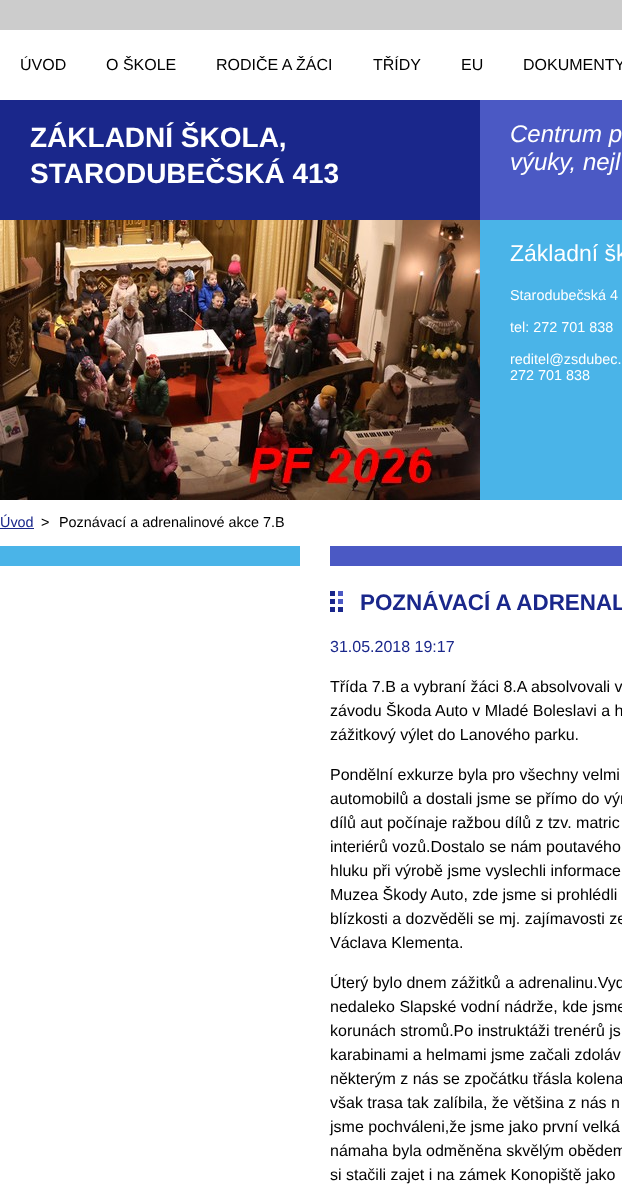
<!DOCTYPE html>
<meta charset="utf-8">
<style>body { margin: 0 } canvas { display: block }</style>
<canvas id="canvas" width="622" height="1197"></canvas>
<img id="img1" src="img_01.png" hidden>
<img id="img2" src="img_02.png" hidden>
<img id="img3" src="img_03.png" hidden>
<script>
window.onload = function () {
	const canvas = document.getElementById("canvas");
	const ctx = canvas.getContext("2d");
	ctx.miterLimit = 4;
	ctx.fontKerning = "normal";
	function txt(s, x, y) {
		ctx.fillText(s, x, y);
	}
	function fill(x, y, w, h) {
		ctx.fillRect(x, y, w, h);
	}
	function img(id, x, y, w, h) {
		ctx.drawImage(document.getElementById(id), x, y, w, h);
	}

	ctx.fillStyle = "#FFFFFF";
	fill(0, 0, 622, 1197);
	img("img1", 0, 0, 622, 100);
	ctx.fillStyle = "#1A278B";
	fill(0, 100, 480, 120);
	ctx.fillStyle = "#4B59C4";
	fill(480, 100, 142, 120);
	img("img2", 0, 220, 480, 280);
	ctx.fillStyle = "#4AB4E8";
	fill(480, 220, 142, 280);
	ctx.fillStyle = "#1A278B";
	fill(0, 528, 34, 1);
	ctx.fillStyle = "#4AB4E8";
	fill(0, 546, 300, 20);
	ctx.fillStyle = "#4B59C4";
	fill(330, 546, 292, 20);
	img("img3", 330, 591, 13, 21);
	ctx.font = "16px Liberation Sans";
	ctx.fillStyle = "#000000";
	txt("ÚVOD", 20, 70);
	txt("O ŠKOLE", 106, 70);
	txt("RODIČE A ŽÁCI", 216, 70);
	txt("TŘÍDY", 373, 70);
	txt("EU", 461, 70);
	txt("DOKUMENTY", 523, 70);
	ctx.font = "bold 28px Liberation Sans";
	ctx.fillStyle = "#FFFFFF";
	txt("ZÁKLADNÍ ŠKOLA,", 30, 147);
	txt("STARODUBEČSKÁ 413", 30, 183);
	ctx.font = "italic 24px Liberation Sans";
	txt("Centrum p", 510, 142);
	txt("výuky, nejl", 510, 170);
	ctx.font = "23px Liberation Sans";
	txt("Základní šk", 510, 261);
	ctx.font = "14.4px Liberation Sans";
	txt("Starodubečská 4", 510, 300);
	txt("tel: 272 701 838", 510, 332);
	txt("reditel@zsdubec.", 510, 364);
	txt("272 701 838", 510, 380);
	ctx.fillStyle = "#1A278B";
	txt("Úvod", 0, 527);
	ctx.fillStyle = "#000000";
	txt(">", 41, 527);
	txt("Poznávací a adrenalinové akce 7.B", 59, 527);
	ctx.save();
	ctx.beginPath();
	ctx.rect(330, 591, 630, 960);
	ctx.clip();
	ctx.font = "bold 22.4px Liberation Sans";
	ctx.fillStyle = "#1A278B";
	txt("POZNÁVACÍ A ADRENAL", 360, 610);
	ctx.restore();
	ctx.font = "16px Liberation Sans";
	ctx.fillStyle = "#1A278B";
	txt("31.05.2018 19:17", 330, 652);
	ctx.fillStyle = "#000000";
	txt("Třída 7.B a vybraní žáci 8.A absolvovali v", 330, 692);
	txt("závodu Škoda Auto v Mladé Boleslavi a h", 330, 716);
	txt("zážitkový výlet do Lanového parku.", 330, 740);
	txt("Pondělní exkurze byla pro všechny velmi", 330, 780);
	txt("automobilů a dostali jsme se přímo do výr", 330, 804);
	txt("dílů aut počínaje ražbou dílů z tzv. matric", 330, 828);
	txt("interiérů vozů.Dostalo se nám poutavého", 330, 852);
	txt("hluku při výrobě jsme vyslechli informace", 330, 876);
	txt("Muzea Škody Auto, zde jsme si prohlédli", 330, 900);
	txt("blízkosti a dozvěděli se mj. zajímavosti ze", 330, 924);
	txt("Václava Klementa.", 330, 948);
	txt("Úterý bylo dnem zážitků a adrenalinu.Vyd", 330, 988);
	txt("nedaleko Slapské vodní nádrže, kde jsme", 330, 1012);
	txt("korunách stromů.Po instruktáži trenérů js", 330, 1036);
	txt("karabinami a helmami jsme začali zdoláv", 330, 1060);
	txt("některým z nás se zpočátku třásla kolena", 330, 1084);
	txt("však trasa tak zalíbila, že většina z nás n", 330, 1108);
	txt("jsme pochváleni,že jsme jako první velká", 330, 1132);
	txt("námaha byla odměněna skvělým obědem", 330, 1156);
	txt("si stačili zajet i na zámek Konopiště jako", 330, 1180);
};
</script>
